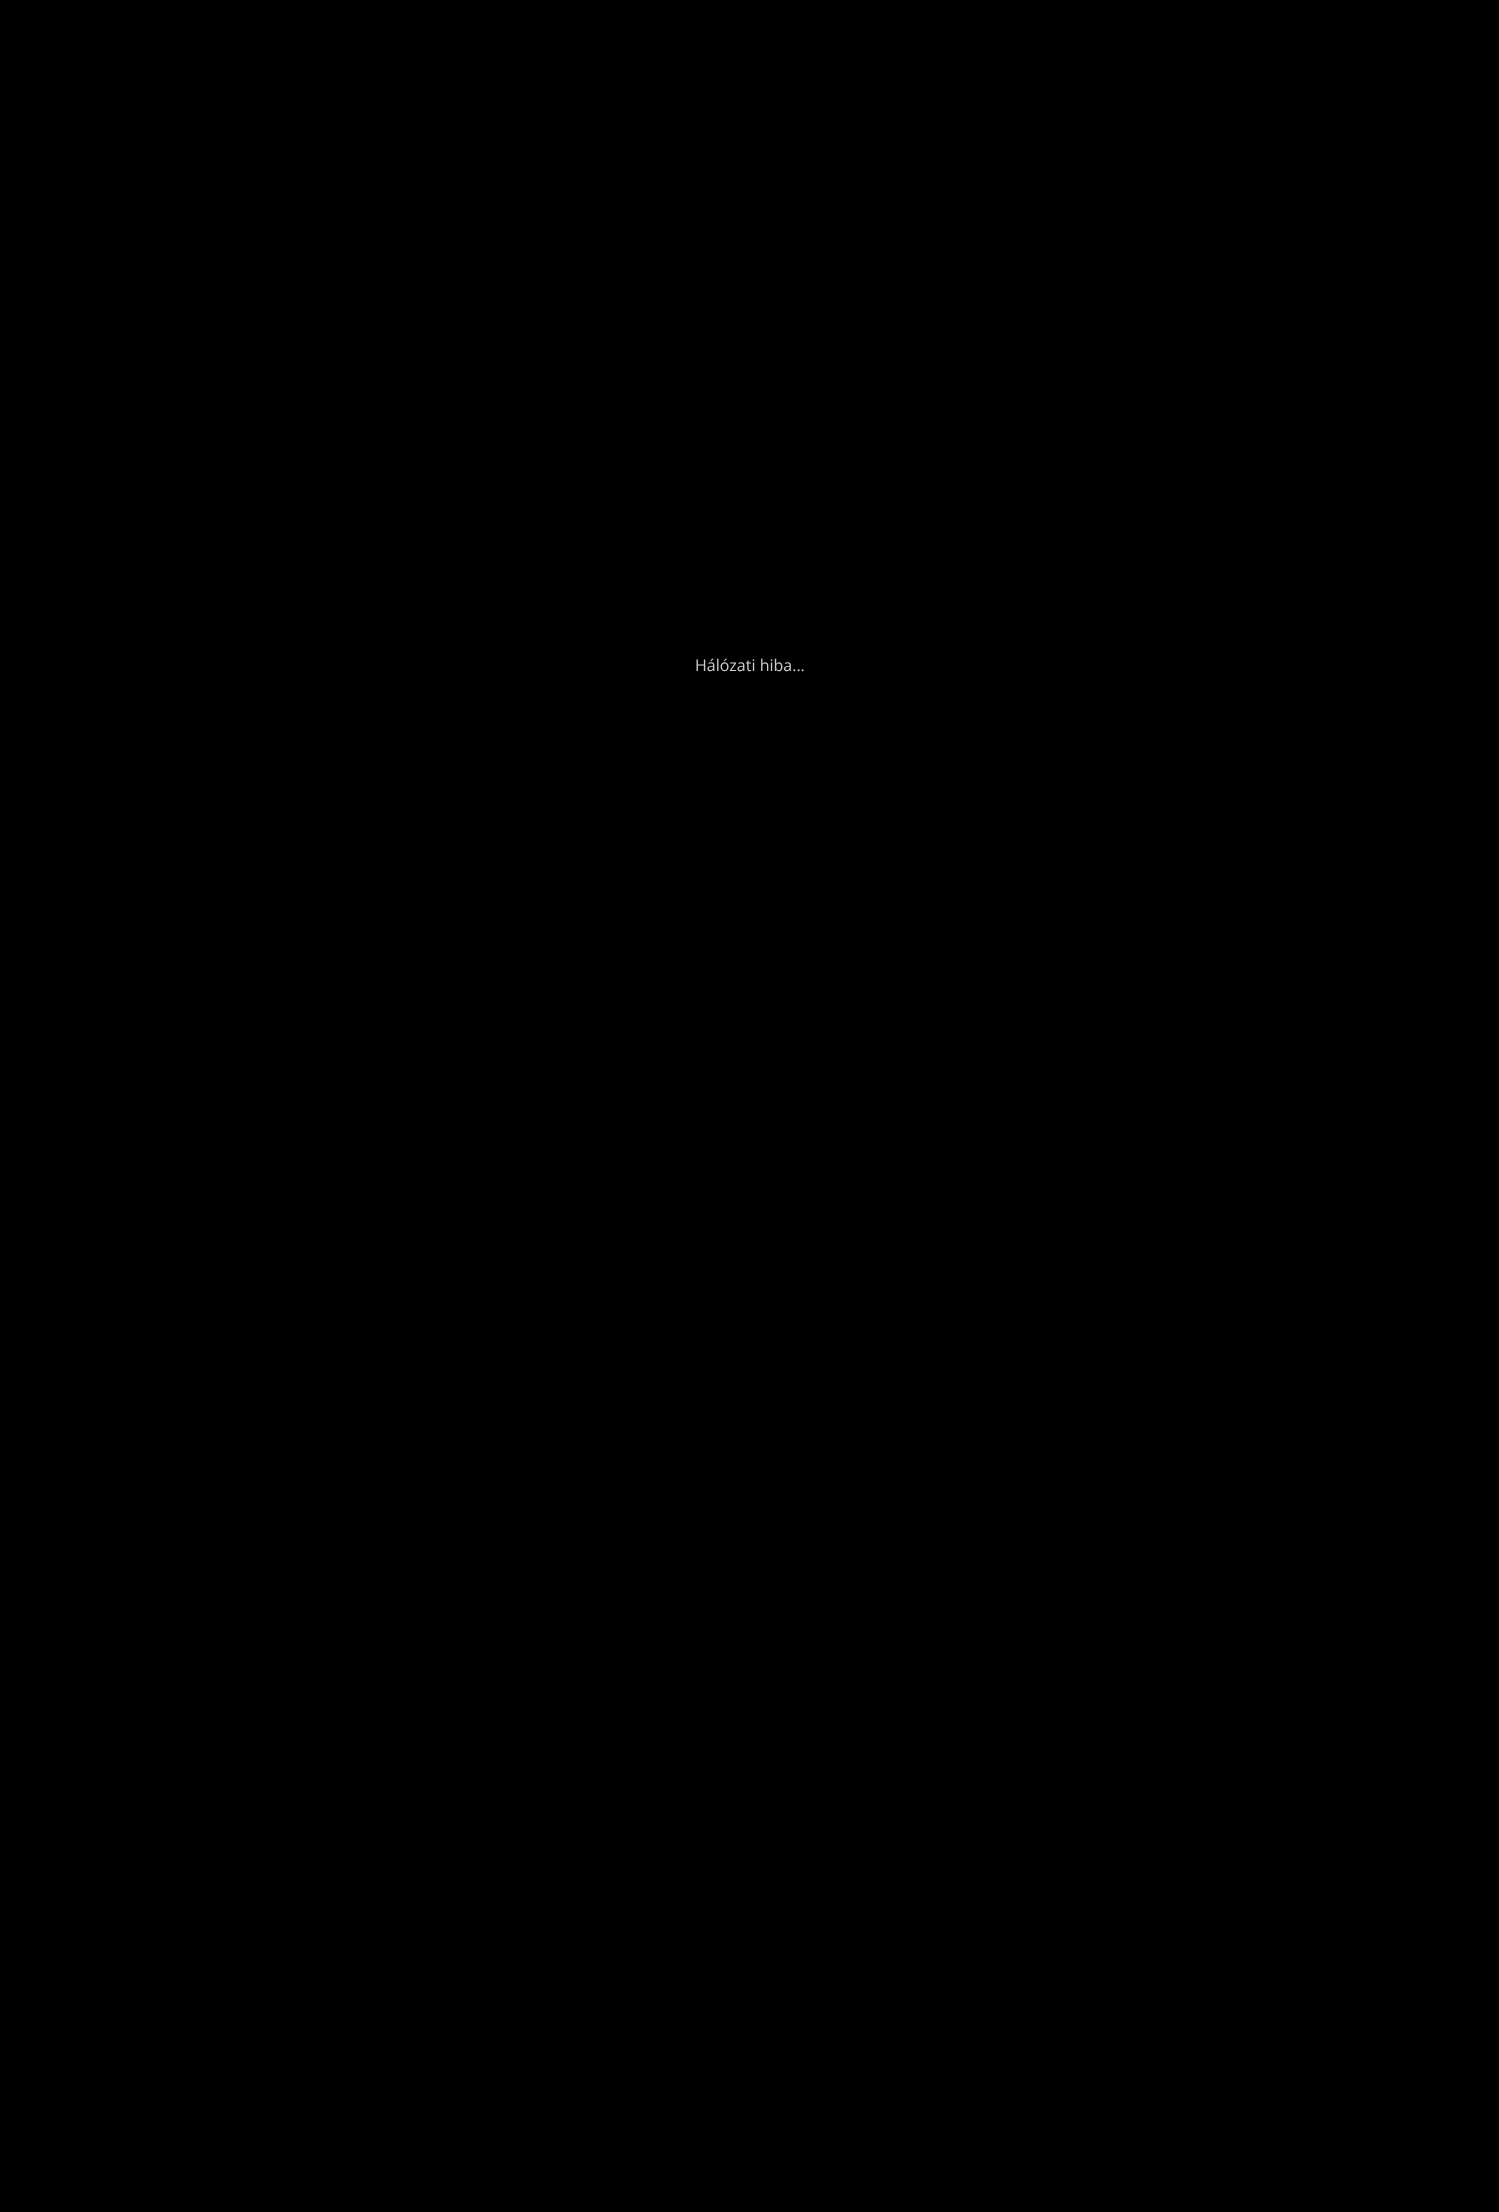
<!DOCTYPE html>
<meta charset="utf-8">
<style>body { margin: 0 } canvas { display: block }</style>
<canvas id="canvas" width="1499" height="2212"></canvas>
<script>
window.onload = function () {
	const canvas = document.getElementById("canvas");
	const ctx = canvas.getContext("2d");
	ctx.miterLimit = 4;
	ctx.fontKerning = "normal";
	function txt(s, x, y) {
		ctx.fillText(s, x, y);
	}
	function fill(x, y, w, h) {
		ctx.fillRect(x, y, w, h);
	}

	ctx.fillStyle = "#000000";
	fill(0, 0, 1499, 2212);
	ctx.font = "16px Open Sans";
	ctx.fillStyle = "#CCCCCC";
	txt("Hálózati hiba...", 695, 671);
};
</script>
